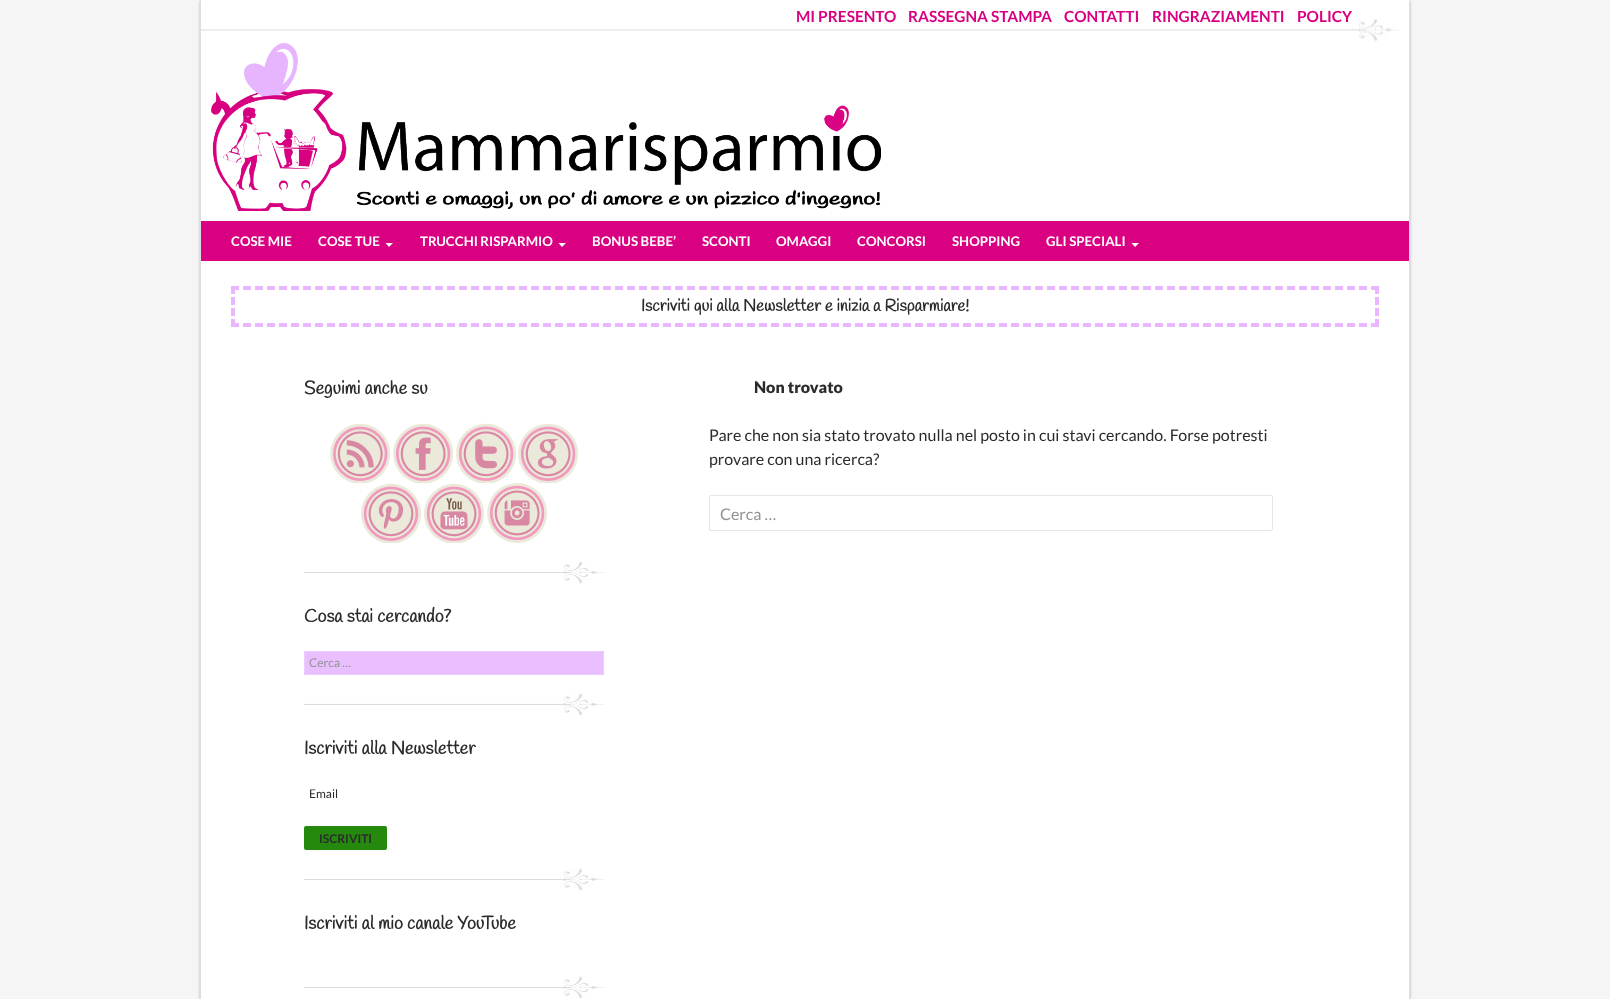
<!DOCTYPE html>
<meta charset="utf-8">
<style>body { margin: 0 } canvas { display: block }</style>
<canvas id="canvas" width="1610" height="999"></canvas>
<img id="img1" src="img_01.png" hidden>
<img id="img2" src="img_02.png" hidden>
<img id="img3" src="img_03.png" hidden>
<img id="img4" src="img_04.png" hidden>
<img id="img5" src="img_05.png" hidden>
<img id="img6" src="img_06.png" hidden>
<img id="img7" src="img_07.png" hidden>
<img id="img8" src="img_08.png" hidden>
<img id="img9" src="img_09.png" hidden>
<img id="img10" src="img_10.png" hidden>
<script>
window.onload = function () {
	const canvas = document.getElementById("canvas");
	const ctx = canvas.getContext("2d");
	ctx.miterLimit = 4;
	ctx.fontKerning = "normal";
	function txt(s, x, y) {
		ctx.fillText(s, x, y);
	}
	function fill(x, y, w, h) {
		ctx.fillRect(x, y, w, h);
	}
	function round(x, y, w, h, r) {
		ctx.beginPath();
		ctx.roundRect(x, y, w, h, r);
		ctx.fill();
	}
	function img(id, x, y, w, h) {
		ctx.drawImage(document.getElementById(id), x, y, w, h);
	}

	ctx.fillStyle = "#F5F5F5";
	fill(0, 0, 1610, 999);
	ctx.fillStyle = "#B5B5B5";
	ctx.filter = "blur(1.5px)";
	ctx.beginPath();
	ctx.roundRect(200, 1, 1210, 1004, 1);
	ctx.fill();
	ctx.filter = "none";
	ctx.fillStyle = "#FFFFFF";
	round(200, 0, 1210, 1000, 1);
	ctx.fillStyle = "#DDDDDD";
	ctx.beginPath();
	ctx.moveTo(1410, 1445);
	ctx.lineTo(1409, 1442);
	ctx.lineTo(1409, 0);
	ctx.lineTo(1410, 1);
	ctx.closePath();
	ctx.fill();
	ctx.beginPath();
	ctx.moveTo(201, 0);
	ctx.lineTo(200, 1);
	ctx.lineTo(200, 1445);
	ctx.lineTo(201, 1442);
	ctx.closePath();
	ctx.fill();
	img("img1", 201, 18, 1198, 24);
	img("img2", 211, 43, 670, 168);
	ctx.fillStyle = "#D90082";
	fill(201, 221, 1208, 40);
	ctx.fillStyle = "#FFFFFF";
	ctx.beginPath();
	ctx.moveTo(385.5, 243);
	ctx.lineTo(389, 247);
	ctx.lineTo(393, 243);
	ctx.closePath();
	ctx.fill();
	ctx.beginPath();
	ctx.moveTo(558.5, 243);
	ctx.lineTo(562, 247);
	ctx.lineTo(566, 243);
	ctx.closePath();
	ctx.fill();
	ctx.beginPath();
	ctx.moveTo(1131.5, 243);
	ctx.lineTo(1135, 247);
	ctx.lineTo(1139, 243);
	ctx.closePath();
	ctx.fill();
	ctx.beginPath();
	ctx.moveTo(231, 288);
	ctx.lineTo(1379, 288);
	ctx.strokeStyle = "#E9B6FF";
	ctx.lineWidth = 4;
	ctx.setLineDash([8, 4]);
	ctx.stroke();
	ctx.beginPath();
	ctx.moveTo(1377, 286);
	ctx.lineTo(1377, 327);
	ctx.setLineDash([8, 3]);
	ctx.stroke();
	ctx.beginPath();
	ctx.moveTo(231, 325);
	ctx.lineTo(1379, 325);
	ctx.setLineDash([8, 4]);
	ctx.stroke();
	ctx.beginPath();
	ctx.moveTo(233, 286);
	ctx.lineTo(233, 327);
	ctx.setLineDash([8, 3]);
	ctx.stroke();
	img("img3", 304, 561, 300, 23);
	img("img4", 330, 423, 60, 60);
	img("img5", 393, 423, 60, 60);
	img("img6", 456, 423, 60, 60);
	img("img7", 518, 423, 60, 60);
	img("img8", 361, 483, 60, 60);
	img("img9", 424, 483, 60, 60);
	img("img10", 487, 483, 60, 60);
	img("img3", 304, 693, 300, 23);
	ctx.fillStyle = "#E7B8FF";
	fill(304, 651, 300, 24);
	ctx.fillStyle = "#E9BFFF";
	ctx.beginPath();
	ctx.roundRect(304.5, 651.5, 299, 23, 1.5);
	ctx.fill();
	ctx.strokeStyle = "#EDCCFF";
	ctx.lineWidth = 1;
	ctx.setLineDash([]);
	ctx.stroke();
	img("img3", 304, 868, 300, 23);
	ctx.fillStyle = "#24890D";
	round(304, 826, 83, 24, 2);
	img("img3", 304, 976, 300, 23);
	ctx.beginPath();
	ctx.roundRect(709.5, 495.5, 563, 35, 1.5);
	ctx.strokeStyle = "#E6E6E6";
	ctx.stroke();
	ctx.font = "bold 15.4px Lato";
	ctx.fillStyle = "#D90082";
	txt("MI PRESENTO", 796, 22);
	txt("RASSEGNA STAMPA", 908, 22);
	txt("CONTATTI", 1064, 22);
	txt("RINGRAZIAMENTI", 1152, 22);
	txt("POLICY", 1297, 22);
	ctx.font = "bold 13.25px Lato";
	ctx.fillStyle = "#FFFFFF";
	txt("COSE MIE", 231, 246);
	txt("COSE TUE", 318, 246);
	txt("TRUCCHI RISPARMIO", 420, 246);
	txt("BONUS BEBE’", 592, 246);
	txt("SCONTI", 702, 246);
	txt("OMAGGI", 776, 246);
	txt("CONCORSI", 857, 246);
	txt("SHOPPING", 952, 246);
	txt("GLI SPECIALI", 1046, 246);
	ctx.font = "bold 16.75px Handlee";
	ctx.fillStyle = "#2B2B2B";
	txt("Iscriviti qui alla Newsletter e inizia a Risparmiare!", 641, 311);
	ctx.font = "bold 18.25px Handlee";
	txt("Seguimi anche su", 304, 394);
	txt("Cosa stai cercando?", 304, 622);
	ctx.font = "12px Lato";
	ctx.fillStyle = "#939393";
	txt("Cerca …", 309, 667);
	ctx.font = "bold 18.25px Handlee";
	ctx.fillStyle = "#2B2B2B";
	txt("Iscriviti alla Newsletter", 304, 754);
	ctx.font = "12px Lato";
	txt("Email", 309, 798);
	ctx.font = "bold 12px Lato";
	txt("ISCRIVITI", 319, 843);
	ctx.font = "bold 18.25px Handlee";
	txt("Iscriviti al mio canale YouTube", 304, 929);
	ctx.font = "900 16px Lato";
	txt("Non trovato", 754, 393);
	ctx.font = "16px Lato";
	txt("Pare che non sia stato trovato nulla nel posto in cui stavi cercando. Forse potresti", 709, 441);
	txt("provare con una ricerca?", 709, 465);
	ctx.fillStyle = "#939393";
	txt("Cerca …", 720, 520);
};
</script>
